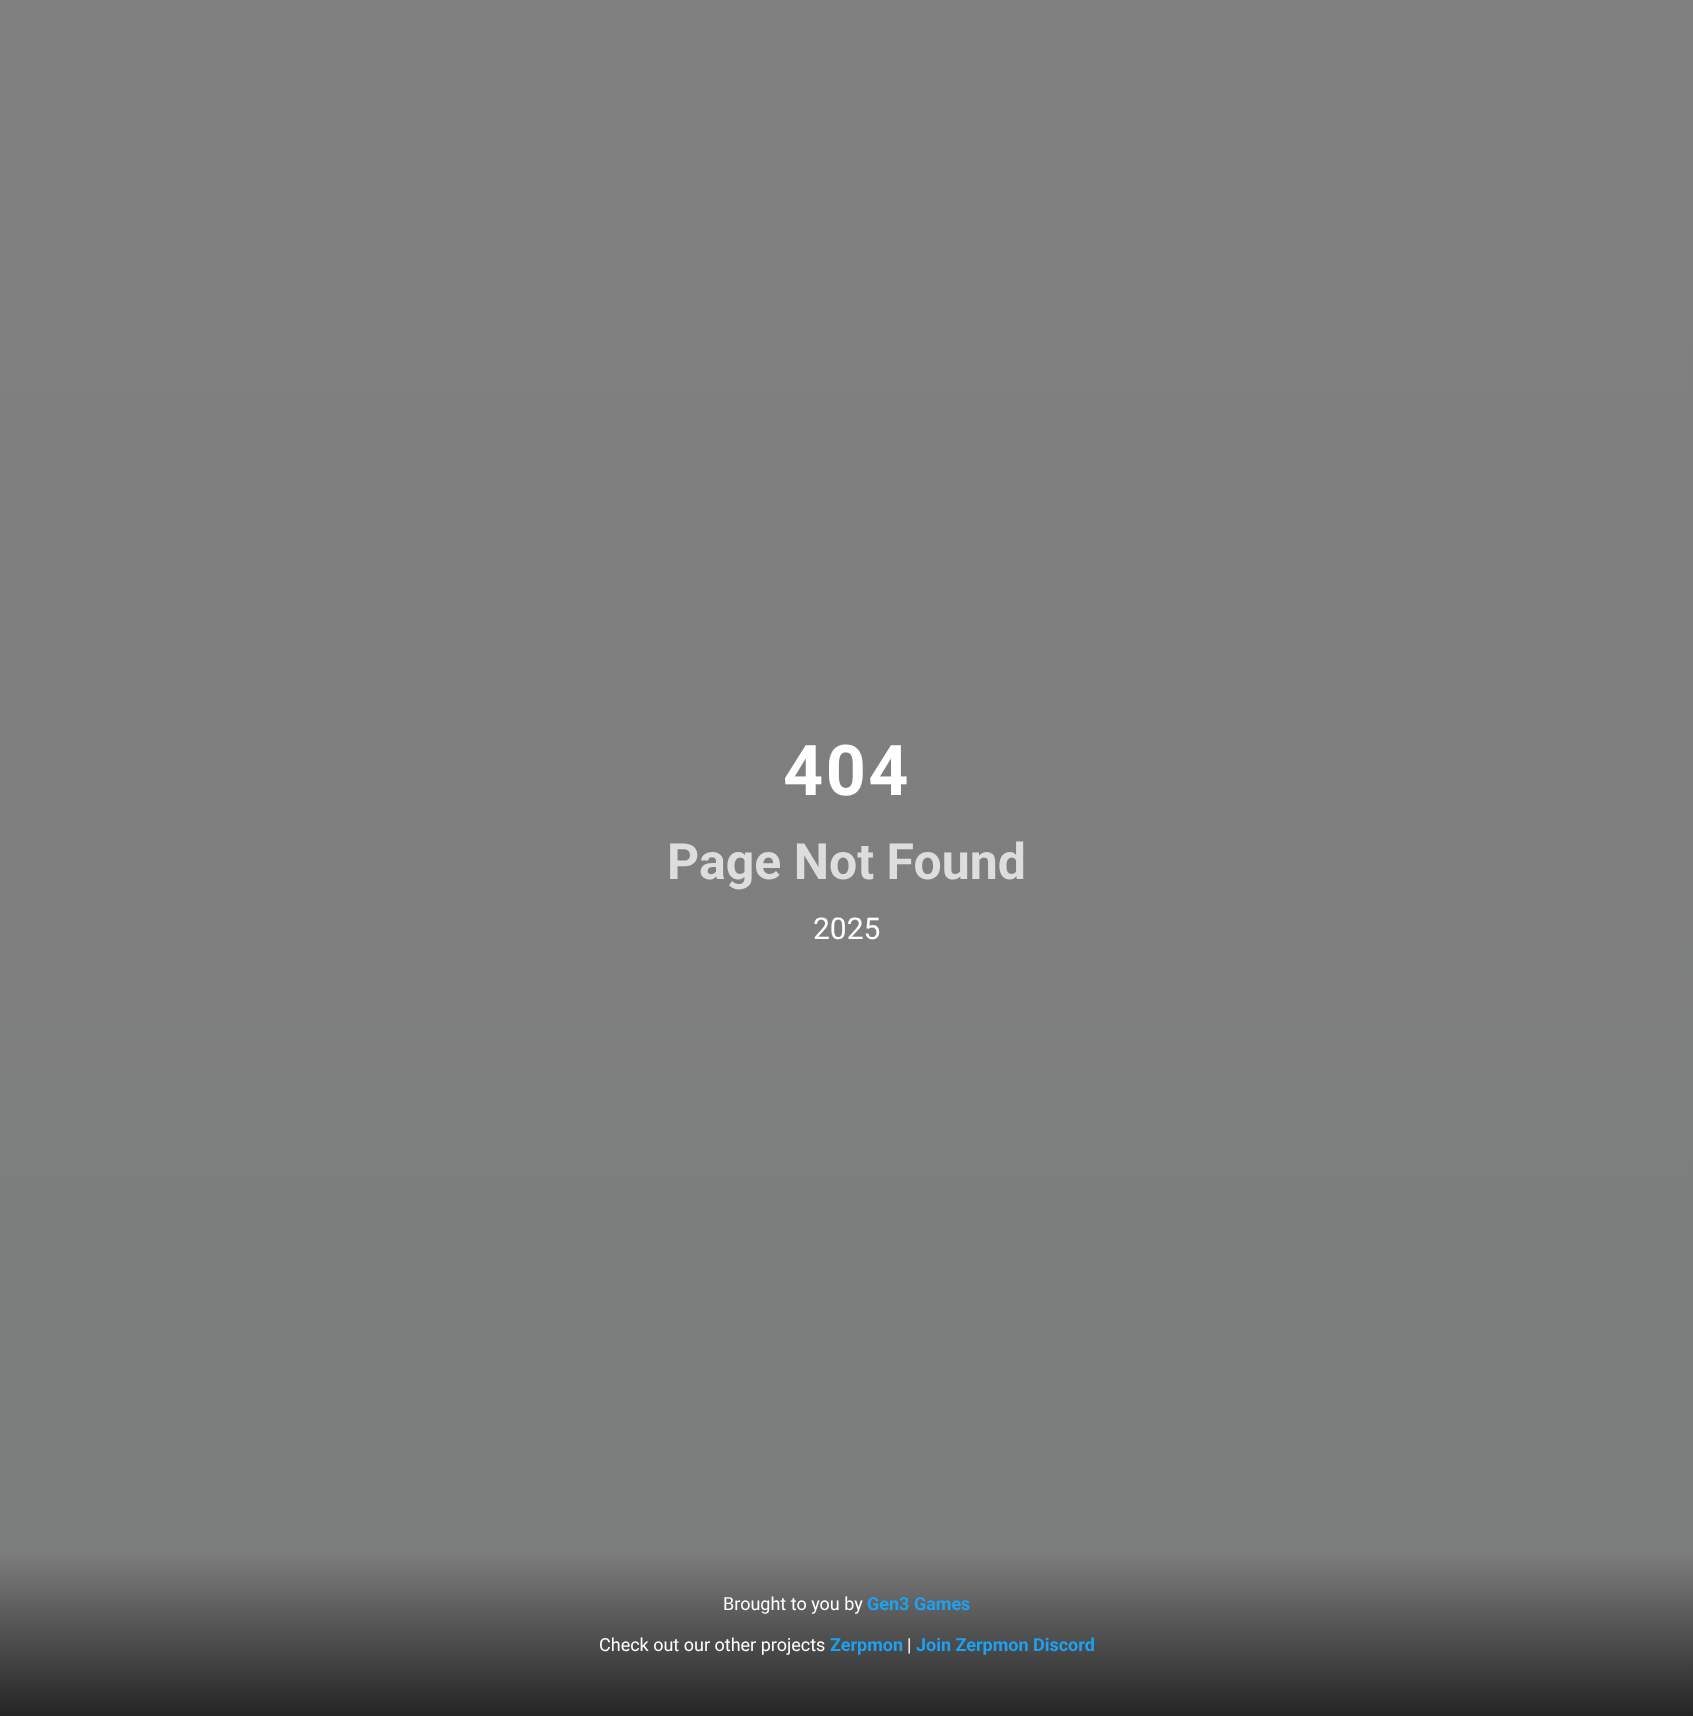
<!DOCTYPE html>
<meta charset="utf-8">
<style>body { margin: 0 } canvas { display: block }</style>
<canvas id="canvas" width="1693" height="1716"></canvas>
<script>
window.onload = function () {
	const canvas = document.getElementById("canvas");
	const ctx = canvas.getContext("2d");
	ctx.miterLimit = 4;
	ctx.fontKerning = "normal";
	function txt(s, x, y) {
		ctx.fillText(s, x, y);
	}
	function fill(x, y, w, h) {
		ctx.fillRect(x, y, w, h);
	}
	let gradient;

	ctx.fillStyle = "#FFFFFF";
	fill(0, 0, 1693, 1716);
	gradient = ctx.createLinearGradient(847, 0, 847, 1716);
	gradient.addColorStop(0, "#808080");
	gradient.addColorStop(1, "#7C7D7D");
	ctx.fillStyle = gradient;
	fill(0, 0, 1693, 1554);
	gradient = ctx.createLinearGradient(847, 1554, 847, 1716);
	gradient.addColorStop(0, "#7C7C7C");
	gradient.addColorStop(1, "#252525");
	ctx.fillStyle = gradient;
	fill(0, 1554, 1693, 162);
	ctx.letterSpacing = "2.5px";
	ctx.font = "bold 70px Roboto";
	ctx.fillStyle = "#FFFFFF";
	txt("404", 783, 795);
	ctx.letterSpacing = "0px";
	ctx.font = "bold 50px Roboto";
	ctx.fillStyle = "#DDDDDD";
	txt("Page Not Found", 667, 879);
	ctx.font = "30px Roboto";
	ctx.fillStyle = "#FFFFFF";
	txt("2025", 813, 939);
	ctx.font = "18px Roboto";
	txt("Brought to you by", 723, 1610);
	ctx.font = "bold 18px Roboto";
	ctx.fillStyle = "#1DA1F2";
	txt("Gen3 Games", 867, 1610);
	ctx.font = "18px Roboto";
	ctx.fillStyle = "#FFFFFF";
	txt("Check out our other projects", 599, 1651);
	ctx.font = "bold 18px Roboto";
	ctx.fillStyle = "#1DA1F2";
	txt("Zerpmon", 830, 1651);
	ctx.font = "18px Roboto";
	ctx.fillStyle = "#FFFFFF";
	txt("|", 907, 1651);
	ctx.font = "bold 18px Roboto";
	ctx.fillStyle = "#1DA1F2";
	txt("Join Zerpmon Discord", 916, 1651);
};
</script>
